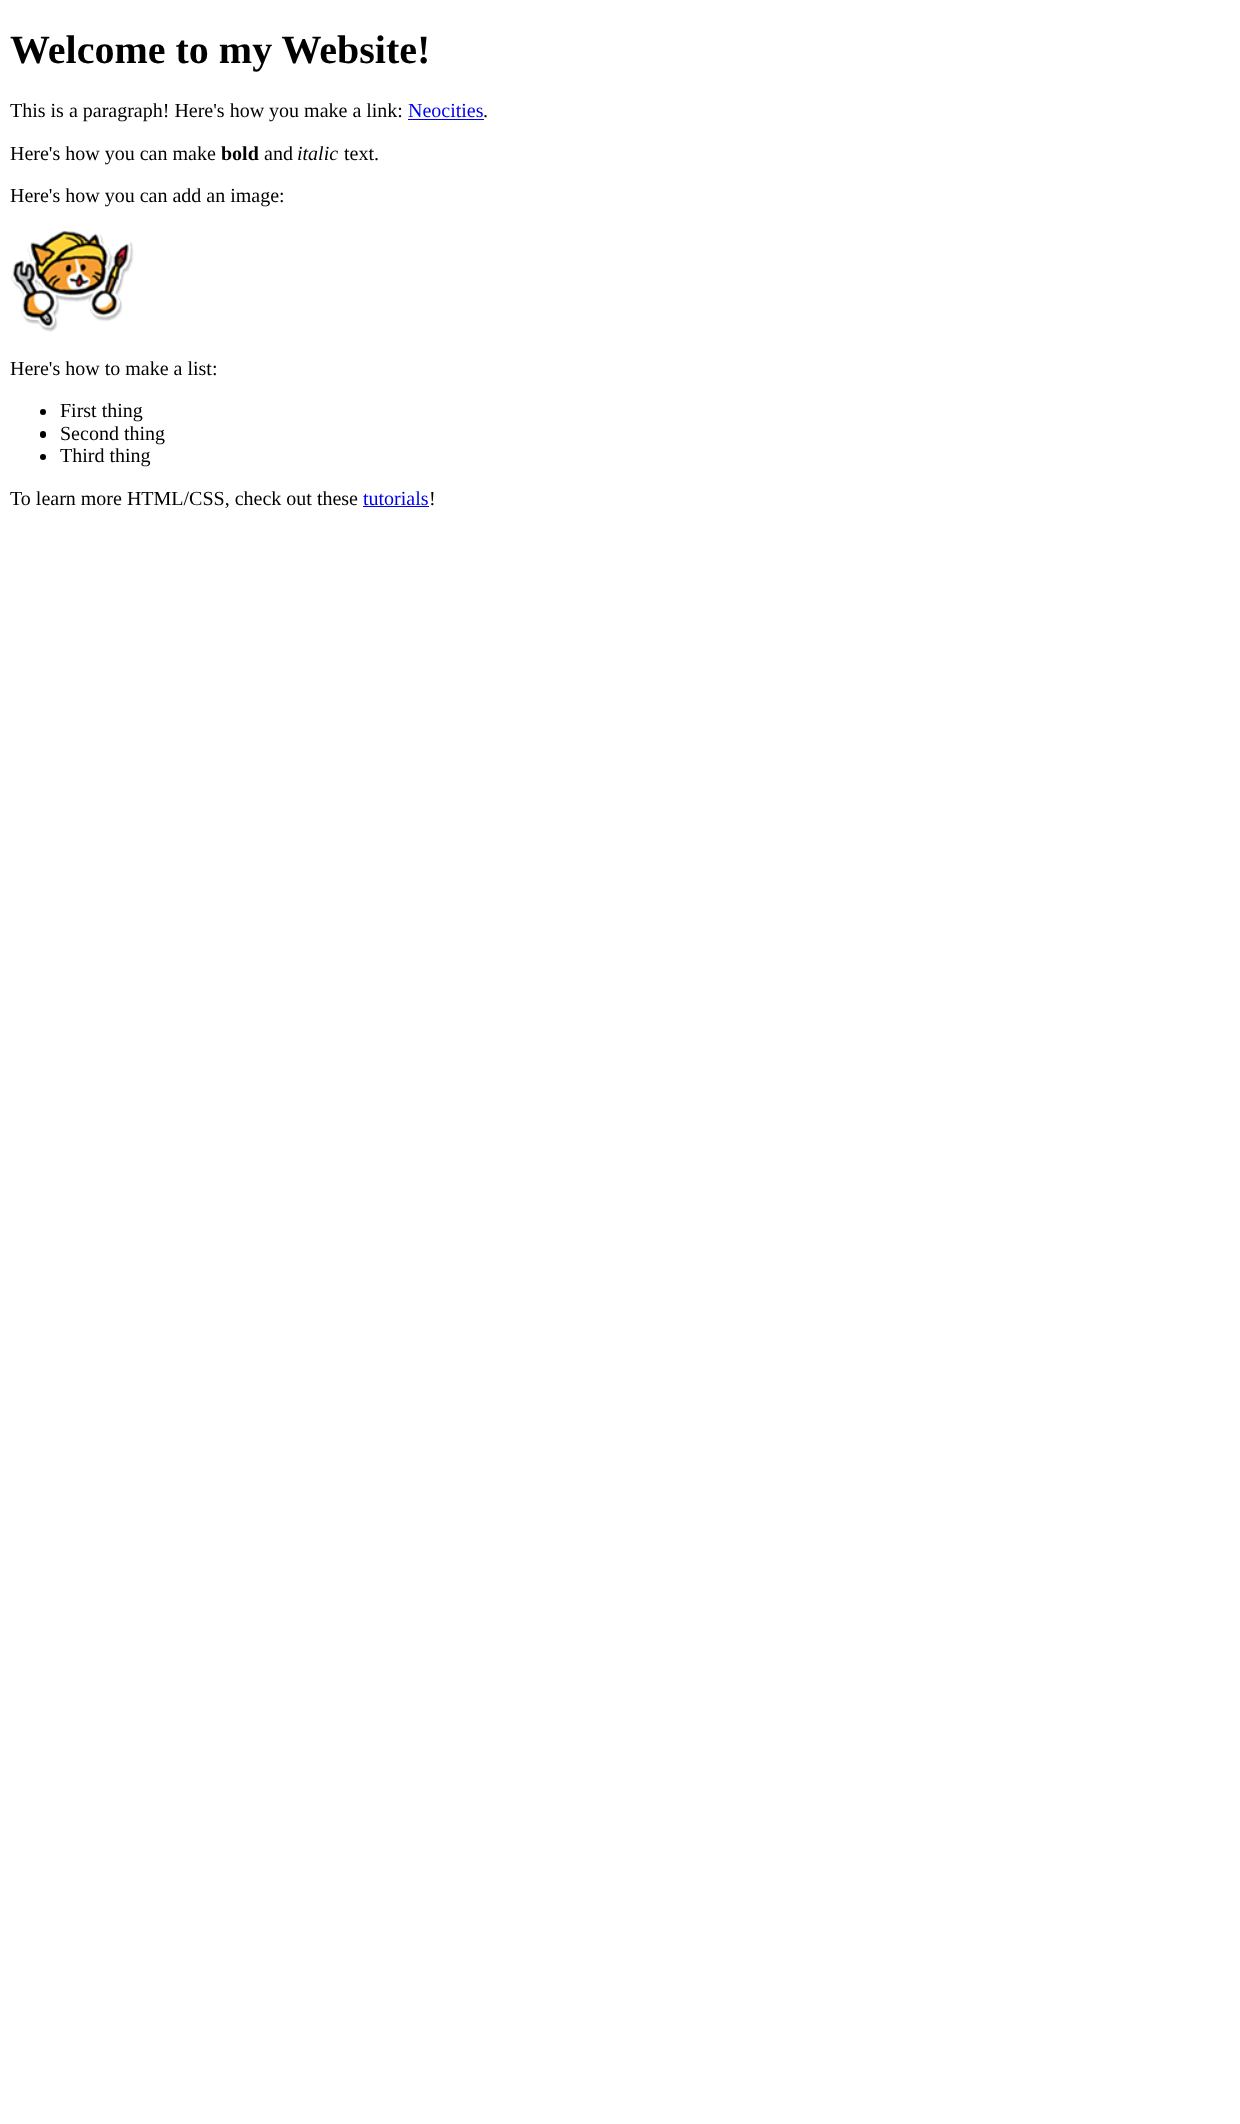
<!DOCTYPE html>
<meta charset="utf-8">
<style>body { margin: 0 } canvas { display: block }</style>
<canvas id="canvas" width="1240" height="2124"></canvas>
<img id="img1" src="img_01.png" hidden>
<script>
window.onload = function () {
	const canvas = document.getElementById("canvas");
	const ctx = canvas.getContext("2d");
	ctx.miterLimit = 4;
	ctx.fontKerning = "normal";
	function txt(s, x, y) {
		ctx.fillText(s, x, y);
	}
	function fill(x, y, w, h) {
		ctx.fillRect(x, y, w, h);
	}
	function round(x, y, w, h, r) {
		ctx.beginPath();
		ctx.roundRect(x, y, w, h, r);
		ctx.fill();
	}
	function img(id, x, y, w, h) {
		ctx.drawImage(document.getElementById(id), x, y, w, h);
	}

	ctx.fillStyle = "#FFFFFF";
	fill(0, 0, 1240, 2124);
	ctx.fillStyle = "#0000EE";
	fill(408, 119, 76, 1);
	img("img1", 11, 230, 123, 102);
	ctx.fillStyle = "#000000";
	ctx.beginPath();
	ctx.arc(43, 412, 3, 0, Math.PI * 2);
	ctx.fill();
	round(40, 431, 6, 7, 3);
	ctx.beginPath();
	ctx.arc(43, 457, 3, 0, Math.PI * 2);
	ctx.fill();
	ctx.fillStyle = "#0000EE";
	fill(363, 506, 66, 1);
	ctx.font = "bold 40px Liberation Serif";
	ctx.fillStyle = "#000000";
	txt("Welcome to my Website!", 10, 63);
	ctx.font = "20px Liberation Serif";
	txt("This is a paragraph! Here's how you make a link:", 10, 117);
	ctx.fillStyle = "#0000EE";
	txt("Neocities", 408, 117);
	ctx.fillStyle = "#000000";
	txt(".", 483, 117);
	txt("Here's how you can make", 10, 160);
	ctx.font = "bold 20px Liberation Serif";
	txt("bold", 221, 160);
	ctx.font = "20px Liberation Serif";
	txt("and", 264, 160);
	ctx.font = "italic 20px Liberation Serif";
	txt("italic", 297, 160);
	ctx.font = "20px Liberation Serif";
	txt("text.", 344, 160);
	txt("Here's how you can add an image:", 10, 202);
	txt("Here's how to make a list:", 10, 375);
	txt("First thing", 60, 417);
	txt("Second thing", 60, 440);
	txt("Third thing", 60, 462);
	txt("To learn more HTML/CSS, check out these", 10, 505);
	ctx.fillStyle = "#0000EE";
	txt("tutorials", 363, 505);
	ctx.fillStyle = "#000000";
	txt("!", 429, 505);
};
</script>
